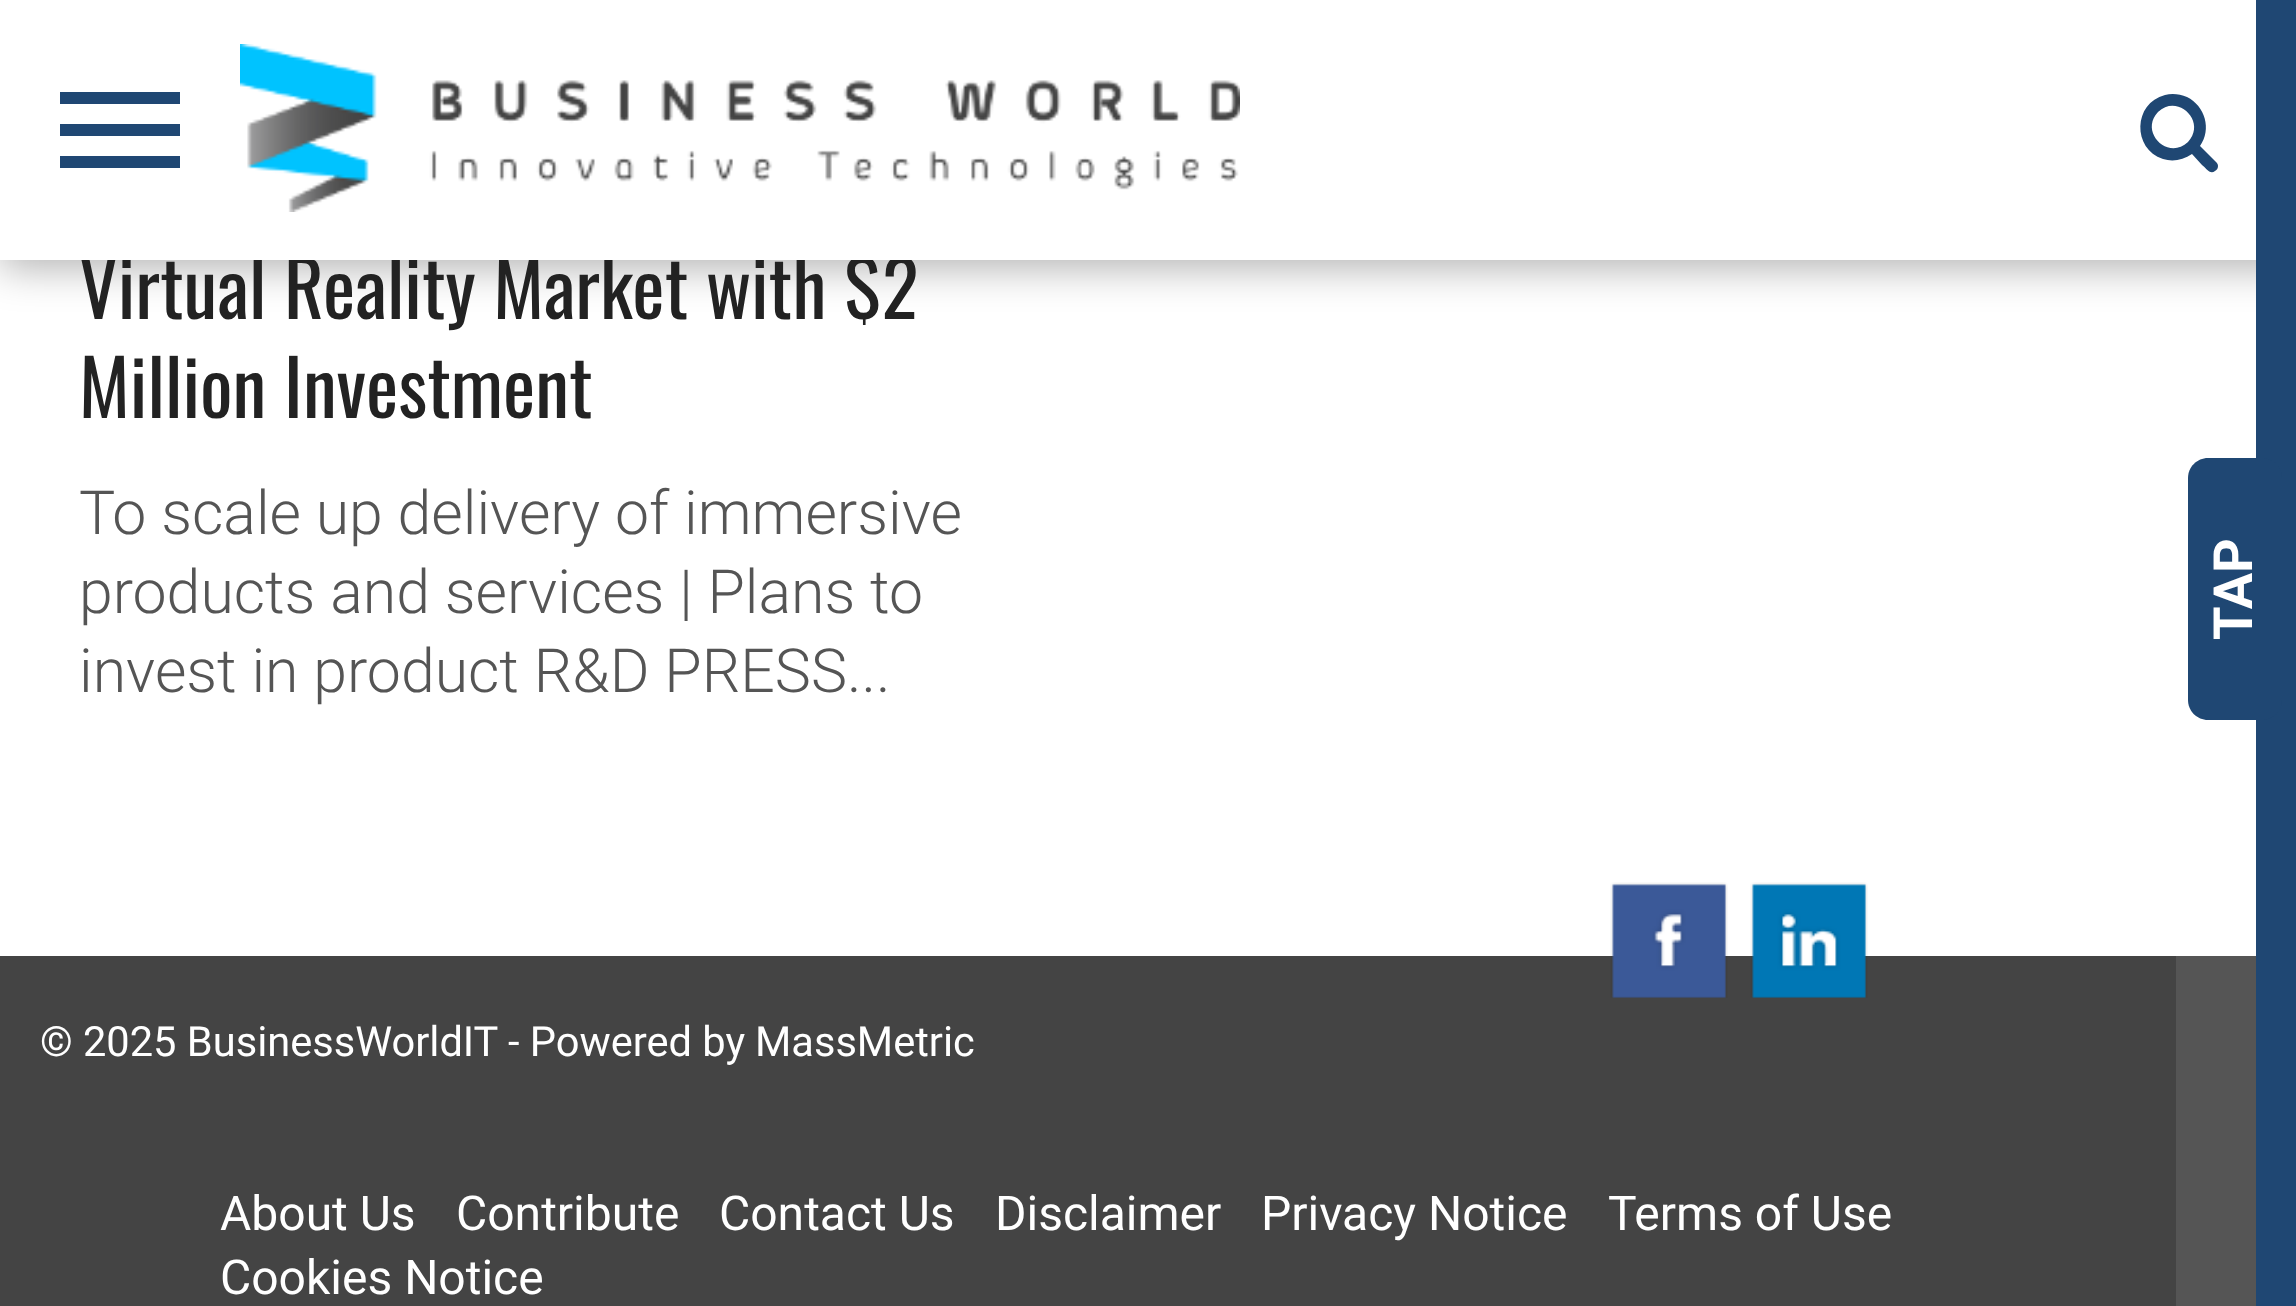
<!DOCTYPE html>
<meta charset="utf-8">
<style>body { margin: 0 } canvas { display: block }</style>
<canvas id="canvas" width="2296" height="1306"></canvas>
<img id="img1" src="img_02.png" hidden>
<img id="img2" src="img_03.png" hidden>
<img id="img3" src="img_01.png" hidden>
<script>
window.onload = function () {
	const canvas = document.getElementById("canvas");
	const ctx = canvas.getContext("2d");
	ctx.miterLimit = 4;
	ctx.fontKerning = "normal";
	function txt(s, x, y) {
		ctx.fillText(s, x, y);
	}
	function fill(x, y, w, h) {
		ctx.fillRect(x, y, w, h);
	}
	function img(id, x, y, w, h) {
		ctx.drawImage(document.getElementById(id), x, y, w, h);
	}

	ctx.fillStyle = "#FFFFFF";
	fill(0, 0, 2296, 1306);
	ctx.fillStyle = "rgba(0, 0, 0, 0.3)";
	ctx.filter = "blur(20px)";
	ctx.beginPath();
	ctx.rect(0, 8, 2296, 260);
	ctx.fill();
	ctx.filter = "none";
	ctx.fillStyle = "#1F4773";
	fill(2256, 0, 40, 1306);
	ctx.beginPath();
	ctx.moveTo(2188, 700);
	ctx.lineTo(2188, 478);
	ctx.bezierCurveTo(2188, 467, 2197, 458, 2208, 458);
	ctx.lineTo(2262, 458);
	ctx.bezierCurveTo(2273, 458, 2282, 467, 2282, 478);
	ctx.lineTo(2282, 700);
	ctx.bezierCurveTo(2282, 711, 2273, 720, 2262, 720);
	ctx.lineTo(2208, 720);
	ctx.bezierCurveTo(2197, 720, 2188, 711, 2188, 700);
	ctx.closePath();
	ctx.fill();
	ctx.fillStyle = "#555555";
	fill(2176, 956, 80, 350);
	ctx.fillStyle = "#444444";
	fill(0, 956, 2176, 350);
	img("img1", 1610, 882, 118, 116);
	img("img2", 1750, 882, 118, 116);
	ctx.font = "76.75px Oswald";
	ctx.fillStyle = "#222222";
	txt("Virtual Reality Market with $2", 79, 319);
	ctx.fillStyle = "#FFFFFF";
	fill(0, 0, 2256, 260);
	ctx.fillStyle = "#1F4773";
	ctx.beginPath();
	ctx.moveTo(2188, 142);
	ctx.bezierCurveTo(2207, 122, 2178, 93, 2158, 112);
	ctx.bezierCurveTo(2139, 132, 2168, 161, 2188, 142);
	ctx.closePath();
	ctx.moveTo(2218, 166);
	ctx.bezierCurveTo(2218, 168, 2217, 170, 2215, 171);
	ctx.bezierCurveTo(2210, 175, 2206, 168, 2202, 165);
	ctx.lineTo(2192, 154);
	ctx.bezierCurveTo(2183, 160, 2173, 162, 2163, 159);
	ctx.bezierCurveTo(2132, 149, 2133, 103, 2165, 95);
	ctx.bezierCurveTo(2172, 93, 2180, 94, 2187, 97);
	ctx.bezierCurveTo(2205, 106, 2212, 129, 2200, 146);
	ctx.lineTo(2216, 162);
	ctx.bezierCurveTo(2217, 163, 2218, 164, 2218, 166);
	ctx.closePath();
	ctx.fill();
	fill(60, 156, 120, 12);
	fill(60, 124, 120, 12);
	fill(60, 92, 120, 12);
	img("img3", 240, 44, 1000, 168);
	ctx.fillStyle = "#222222";
	txt("Million Investment", 79, 418);
	ctx.font = "300 60.75px Roboto";
	ctx.fillStyle = "#555555";
	txt("To scale up delivery of immersive", 79, 534);
	txt("products and services | Plans to", 79, 613);
	txt("invest in product R&D PRESS...", 79, 692);
	ctx.font = "bold 54px Roboto";
	ctx.fillStyle = "#FFFFFF";
	ctx.save();
	ctx.translate(2252, 640);
	ctx.rotate(-90 * Math.PI / 180);
	ctx.fillText("TAP", 0, 0);
	ctx.restore();
	ctx.font = "41.6px Roboto";
	txt("© 2025 BusinessWorldIT - Powered by", 40, 1056);
	txt("MassMetric", 755, 1056);
	ctx.font = "48px Roboto";
	txt("About Us", 220, 1230);
	txt("Contribute", 456, 1230);
	txt("Contact Us", 719, 1230);
	txt("Disclaimer", 995, 1230);
	txt("Privacy Notice", 1261, 1230);
	txt("Terms of Use", 1608, 1230);
	txt("Cookies Notice", 220, 1294);
};
</script>
